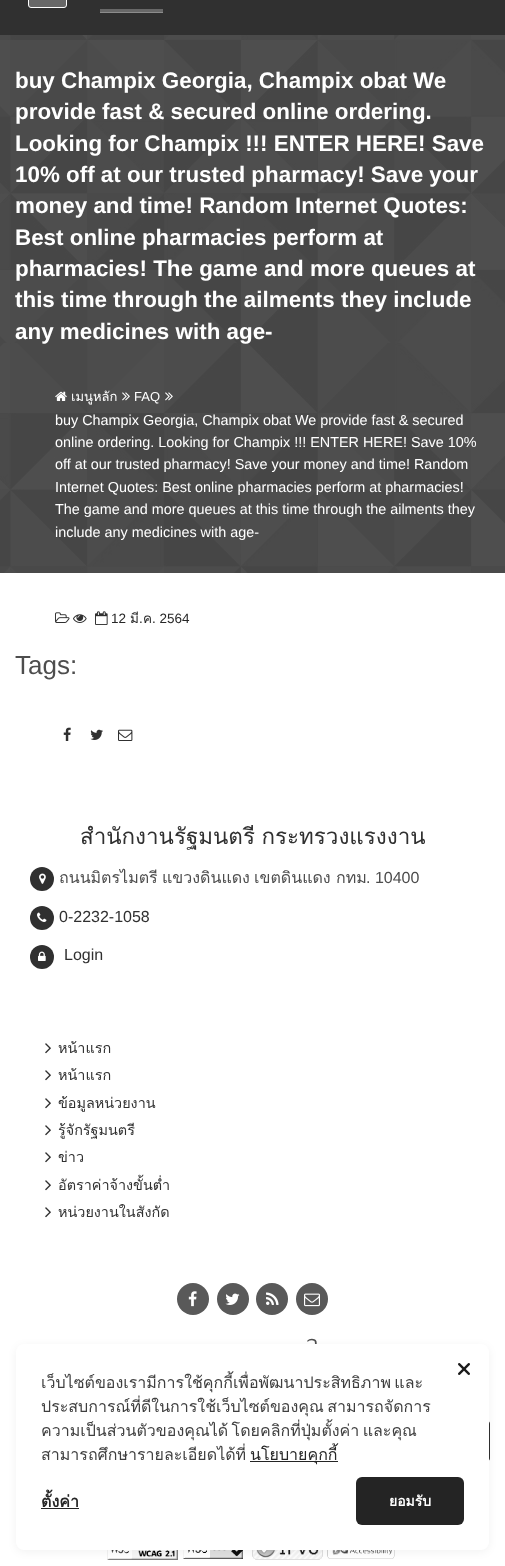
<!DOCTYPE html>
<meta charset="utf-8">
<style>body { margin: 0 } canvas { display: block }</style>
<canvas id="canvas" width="505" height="1566"></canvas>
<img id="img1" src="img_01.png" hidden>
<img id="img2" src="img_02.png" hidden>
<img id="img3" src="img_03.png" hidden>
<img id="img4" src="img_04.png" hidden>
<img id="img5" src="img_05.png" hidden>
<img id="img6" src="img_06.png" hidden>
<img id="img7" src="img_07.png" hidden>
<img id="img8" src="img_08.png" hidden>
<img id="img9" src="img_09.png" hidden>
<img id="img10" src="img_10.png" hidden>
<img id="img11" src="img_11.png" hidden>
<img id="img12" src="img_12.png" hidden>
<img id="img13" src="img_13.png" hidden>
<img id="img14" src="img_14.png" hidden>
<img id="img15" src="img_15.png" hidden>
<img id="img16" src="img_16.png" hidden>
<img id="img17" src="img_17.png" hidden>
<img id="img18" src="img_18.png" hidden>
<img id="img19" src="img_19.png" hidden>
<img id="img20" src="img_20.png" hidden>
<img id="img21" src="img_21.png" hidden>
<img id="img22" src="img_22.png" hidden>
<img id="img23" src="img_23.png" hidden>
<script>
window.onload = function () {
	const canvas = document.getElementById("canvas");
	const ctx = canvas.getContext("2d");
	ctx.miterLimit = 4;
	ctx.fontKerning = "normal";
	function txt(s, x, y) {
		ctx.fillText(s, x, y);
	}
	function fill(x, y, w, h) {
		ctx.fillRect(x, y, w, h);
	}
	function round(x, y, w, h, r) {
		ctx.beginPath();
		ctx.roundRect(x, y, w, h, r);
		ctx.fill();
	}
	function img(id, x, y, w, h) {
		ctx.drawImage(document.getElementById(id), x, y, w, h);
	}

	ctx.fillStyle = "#FFFFFF";
	fill(0, 0, 505, 1566);
	ctx.fillStyle = "#303030";
	fill(0, 0, 505, 35);
	ctx.fillStyle = "#686868";
	ctx.beginPath();
	ctx.roundRect(28.5, -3.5, 38, 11, 2.5);
	ctx.fill();
	ctx.strokeStyle = "#FFFFFF";
	ctx.stroke();
	ctx.fillStyle = "#8C8C8C";
	fill(100, 12, 63, 1);
	ctx.fillStyle = "#686868";
	fill(100, 9, 63, 3);
	img("img1", 0, 35, 505, 538);
	img("img2", 55, 391, 12, 10);
	img("img3", 122, 392, 8, 9);
	img("img4", 165, 392, 8, 9);
	img("img5", 55, 612, 15, 11);
	img("img6", 73, 614, 14, 9);
	img("img7", 95, 611, 13, 14);
	img("img8", 63, 727, 8, 14);
	img("img9", 90, 729, 13, 11);
	img("img10", 118, 729, 15, 12);
	ctx.fillStyle = "#303030";
	ctx.beginPath();
	ctx.arc(42, 879, 12, 0, Math.PI * 2);
	ctx.fill();
	img("img11", 39, 873, 7, 11);
	ctx.beginPath();
	ctx.arc(42, 918, 12, 0, Math.PI * 2);
	ctx.fill();
	img("img12", 37, 912, 10, 10);
	ctx.beginPath();
	ctx.arc(42, 957, 12, 0, Math.PI * 2);
	ctx.fill();
	img("img13", 38, 951, 8, 10);
	img("img14", 45, 1043, 6, 11);
	img("img14", 45, 1070, 6, 11);
	img("img14", 45, 1098, 6, 11);
	img("img14", 45, 1125, 6, 11);
	img("img14", 45, 1152, 6, 11);
	img("img14", 45, 1180, 6, 11);
	img("img14", 45, 1207, 6, 11);
	ctx.fillStyle = "#595959";
	ctx.beginPath();
	ctx.arc(193, 1299, 16, 0, Math.PI * 2);
	ctx.fill();
	img("img15", 188, 1291, 9, 16);
	ctx.beginPath();
	ctx.arc(233, 1299, 16, 0, Math.PI * 2);
	ctx.fill();
	img("img16", 225, 1293, 15, 12);
	ctx.beginPath();
	ctx.arc(272, 1299, 16, 0, Math.PI * 2);
	ctx.fill();
	img("img17", 266, 1292, 13, 13);
	ctx.beginPath();
	ctx.arc(312, 1299, 16, 0, Math.PI * 2);
	ctx.fill();
	img("img18", 304, 1293, 16, 14);
	img("img19", 107, 1550, 71, 10);
	img("img20", 183, 1550, 64, 9);
	img("img21", 252, 1550, 71, 10);
	img("img22", 327, 1550, 71, 9);
	ctx.fillStyle = "#303030";
	round(450, 1421, 40, 40, 3);
	ctx.fillStyle = "rgba(0, 0, 0, 0.05)";
	ctx.filter = "blur(4px)";
	ctx.beginPath();
	ctx.roundRect(16, 1346, 473, 206, 8);
	ctx.fill();
	ctx.filter = "none";
	ctx.font = "bold 22.4px Liberation Sans";
	ctx.fillStyle = "#FFFFFF";
	txt("buy Champix Georgia, Champix obat We", 15, 88);
	txt("provide fast & secured online ordering.", 15, 119);
	txt("Looking for Champix !!! ENTER HERE! Save", 15, 151);
	txt("10% off at our trusted pharmacy! Save your", 15, 182);
	txt("money and time! Random Internet Quotes:", 15, 213);
	txt("Best online pharmacies perform at", 15, 245);
	txt("pharmacies! The game and more queues at", 15, 276);
	txt("this time through the ailments they include", 15, 307);
	txt("any medicines with age-", 15, 339);
	ctx.font = "13px Loma";
	txt("เมนูหลัก", 71, 401);
	ctx.font = "13px Liberation Sans";
	txt("FAQ", 134, 401);
	ctx.font = "14.4px Liberation Sans";
	txt("buy Champix Georgia, Champix obat We provide fast & secured", 55, 425);
	txt("online ordering. Looking for Champix !!! ENTER HERE! Save 10%", 55, 447);
	txt("off at our trusted pharmacy! Save your money and time! Random", 55, 469);
	txt("Internet Quotes: Best online pharmacies perform at pharmacies!", 55, 492);
	txt("The game and more queues at this time through the ailments they", 55, 514);
	txt("include any medicines with age-", 55, 537);
	ctx.font = "13.5px Liberation Sans";
	ctx.fillStyle = "#262626";
	txt("12", 111, 623);
	ctx.font = "13.5px Loma";
	txt("มี", 130, 623);
	ctx.font = "13.5px Liberation Sans";
	txt(".", 139, 623);
	ctx.font = "13.5px Loma";
	txt("ค", 143, 623);
	ctx.font = "13.5px Liberation Sans";
	txt(". 2564", 152, 623);
	ctx.font = "26px Liberation Sans";
	ctx.fillStyle = "#4D4D4D";
	txt("Tags:", 15, 674);
	ctx.wordSpacing = "-1px";
	ctx.font = "22.4px Loma";
	ctx.fillStyle = "#303030";
	txt("สำนักงานรัฐมนตรี กระทรวงแรงงาน", 80, 844);
	ctx.wordSpacing = "0px";
	ctx.font = "16px Loma";
	ctx.fillStyle = "#4D4D4D";
	txt("ถนนมิตรไมตรี", 59, 883);
	txt("แขวงดินแดง", 162, 883);
	txt("เขตดินแดง", 254, 883);
	txt("กทม", 336, 883);
	ctx.font = "16px Liberation Sans";
	txt(". 10400", 366, 883);
	ctx.fillStyle = "#303030";
	txt("0-2232-1058", 59, 922);
	txt("Login", 64, 960);
	ctx.font = "14.4px Loma";
	txt("หน้าแรก", 58, 1053);
	txt("หน้าแรก", 58, 1080);
	txt("ข้อมูลหน่วยงาน", 58, 1108);
	txt("รู้จักรัฐมนตรี", 58, 1135);
	txt("ข่าว", 58, 1162);
	txt("อัตราค่าจ้างขั้นต่ำ", 58, 1190);
	txt("หน่วยงานในสังกัด", 58, 1217);
	ctx.font = "22px Loma";
	ctx.fillStyle = "#4D4D4D";
	txt("ว", 306, 1351);
	ctx.fillStyle = "#FFFFFF";
	round(16, 1344, 473, 206, 8);
	img("img23", 458, 1363, 12, 12);
	ctx.wordSpacing = "-2px";
	ctx.font = "16px Loma";
	ctx.fillStyle = "#3F3F3F";
	txt("เว็บไซต์ของเรามีการใช้คุกกี้เพื่อพัฒนาประสิทธิภาพ และ", 41, 1388);
	txt("ประสบการณ์ที่ดีในการใช้เว็บไซต์ของคุณ สามารถจัดการ", 41, 1412);
	txt("ความเป็นส่วนตัวของคุณได้ โดยคลิกที่ปุ่มตั้งค่า และคุณ", 41, 1436);
	ctx.wordSpacing = "0px";
	txt("สามารถศึกษารายละเอียดได้ที่", 41, 1460);
	ctx.fillStyle = "#242424";
	fill(250, 1461, 88, 1);
	ctx.fillStyle = "#262626";
	txt("นโยบายคุกกี้", 250, 1460);
	ctx.font = "bold 16px Loma";
	txt("ตั้งค่า", 41, 1507);
	ctx.fillStyle = "#242424";
	fill(41, 1508, 38, 1);
	round(356, 1477, 108, 48, 6);
	ctx.font = "bold 14px Loma";
	ctx.fillStyle = "#FFFFFF";
	txt("ยอมรับ", 389, 1506);
};
</script>
